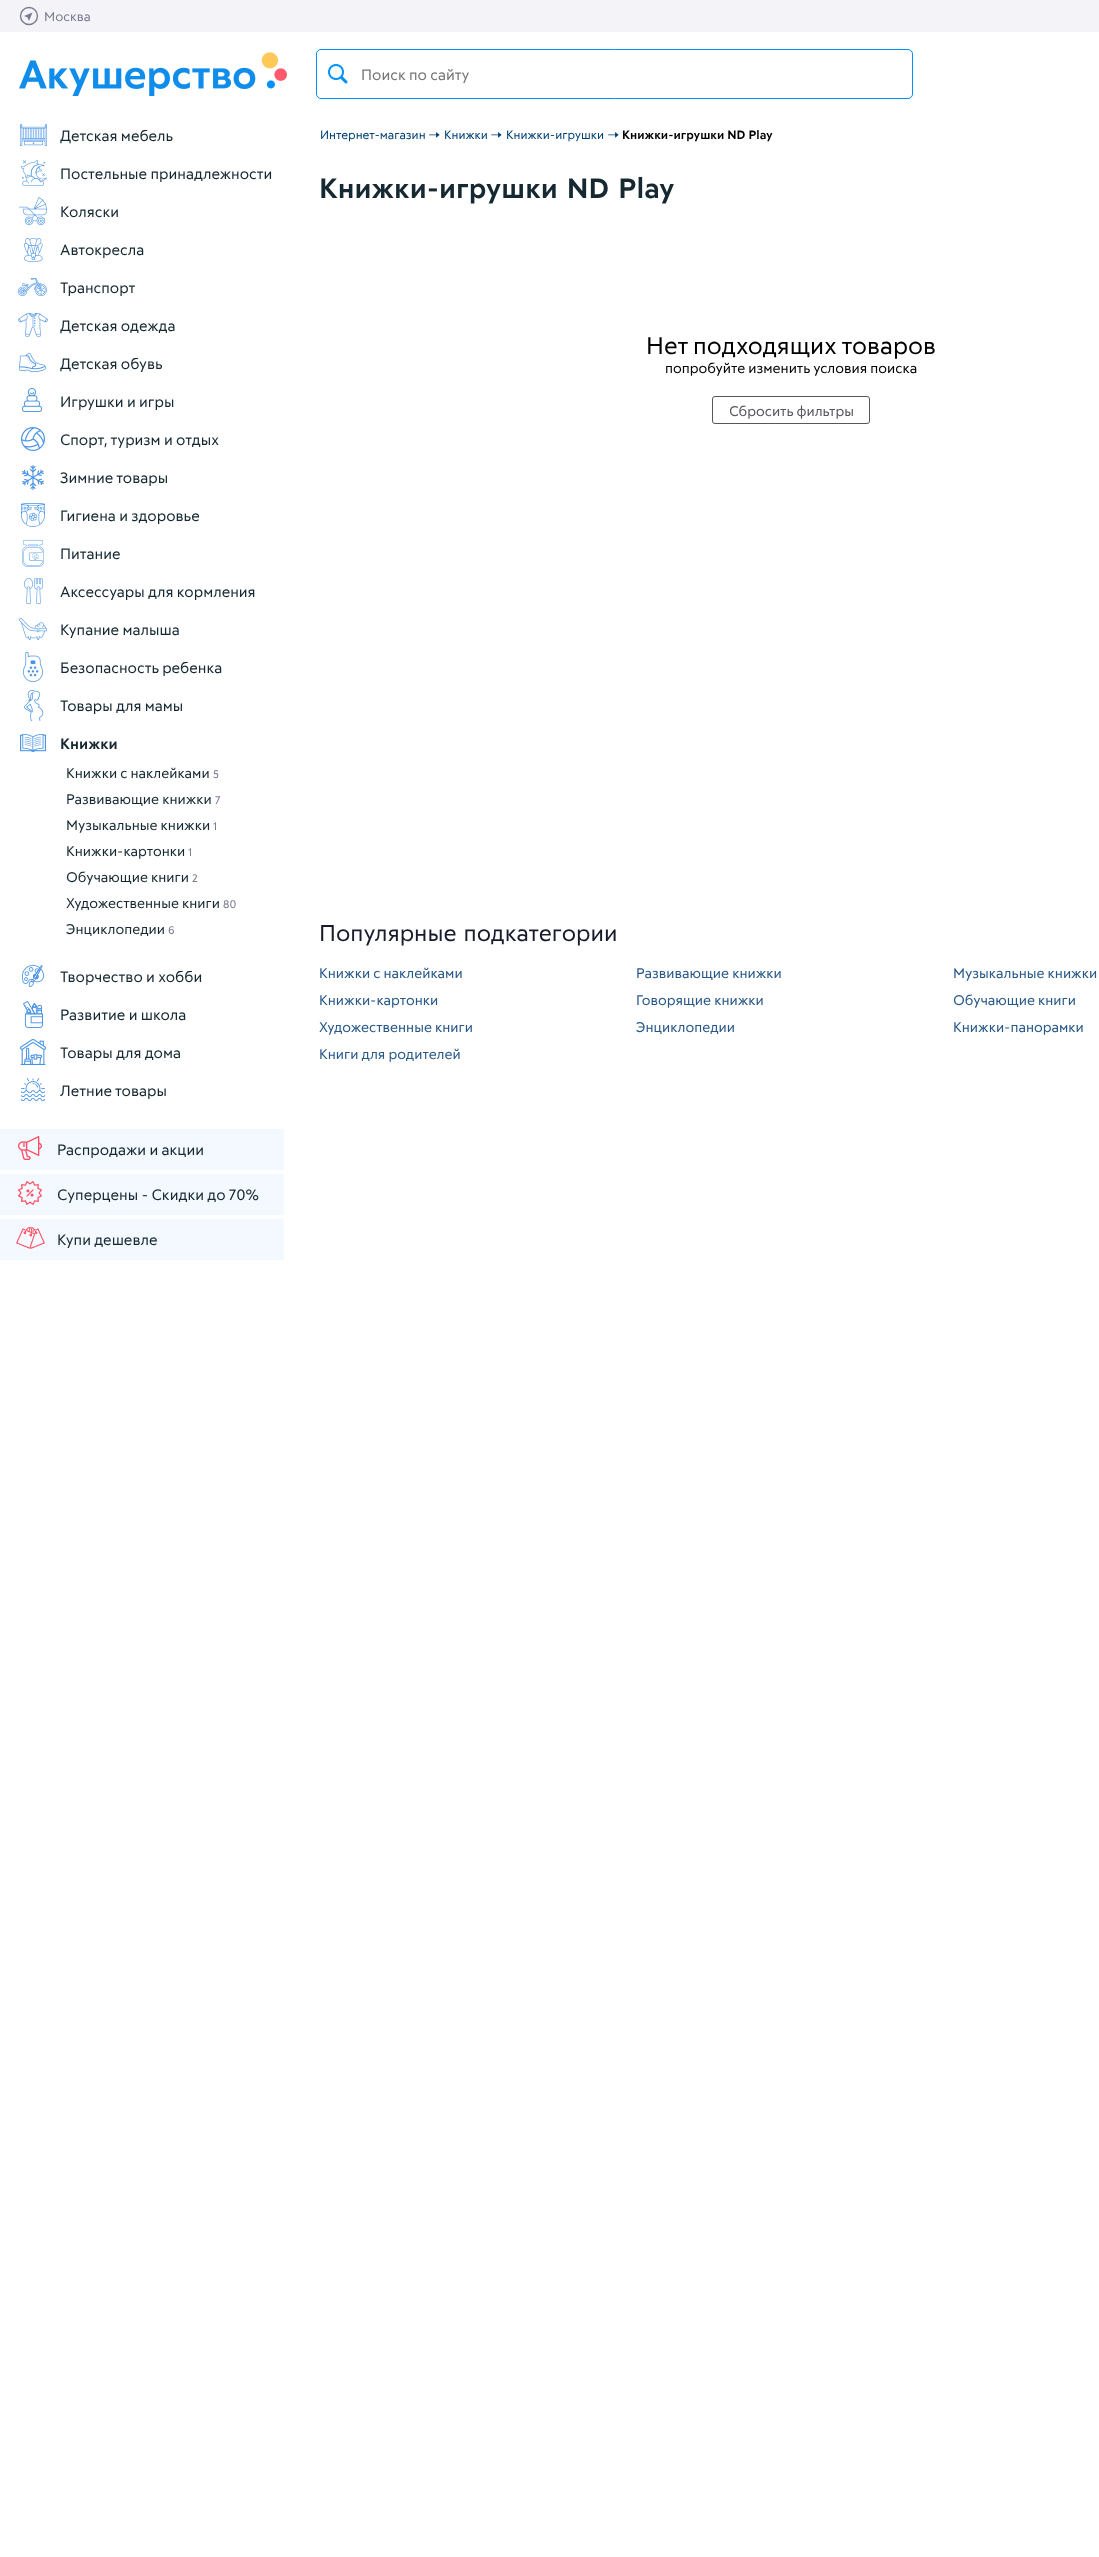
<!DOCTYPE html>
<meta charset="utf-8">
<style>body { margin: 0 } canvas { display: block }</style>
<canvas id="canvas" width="1099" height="2557"></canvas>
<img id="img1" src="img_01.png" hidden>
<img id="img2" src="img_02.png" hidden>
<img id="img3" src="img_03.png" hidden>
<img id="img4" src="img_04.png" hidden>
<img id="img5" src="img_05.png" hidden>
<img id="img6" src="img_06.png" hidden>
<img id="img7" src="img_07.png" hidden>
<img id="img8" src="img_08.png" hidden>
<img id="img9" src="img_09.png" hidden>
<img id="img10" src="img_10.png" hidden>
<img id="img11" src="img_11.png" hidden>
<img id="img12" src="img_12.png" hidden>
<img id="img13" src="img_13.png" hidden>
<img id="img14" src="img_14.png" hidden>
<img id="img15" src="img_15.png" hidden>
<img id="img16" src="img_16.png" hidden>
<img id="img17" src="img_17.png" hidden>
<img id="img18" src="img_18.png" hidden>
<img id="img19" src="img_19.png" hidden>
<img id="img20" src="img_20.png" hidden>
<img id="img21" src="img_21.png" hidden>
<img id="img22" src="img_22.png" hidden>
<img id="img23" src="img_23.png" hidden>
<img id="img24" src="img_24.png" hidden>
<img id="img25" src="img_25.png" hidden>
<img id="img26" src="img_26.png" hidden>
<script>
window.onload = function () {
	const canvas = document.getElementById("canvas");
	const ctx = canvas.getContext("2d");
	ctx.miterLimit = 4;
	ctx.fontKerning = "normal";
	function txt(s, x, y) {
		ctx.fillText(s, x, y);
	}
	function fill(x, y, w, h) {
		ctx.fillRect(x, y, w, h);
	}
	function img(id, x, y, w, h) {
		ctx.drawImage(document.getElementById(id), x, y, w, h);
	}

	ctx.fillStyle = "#FFFFFF";
	fill(0, 0, 1099, 2557);
	ctx.fillStyle = "#F4F4F8";
	fill(0, 0, 1099, 32);
	ctx.beginPath();
	ctx.arc(29, 16, 8.5, 0, Math.PI * 2);
	ctx.strokeStyle = "#777C91";
	ctx.lineWidth = 1.4;
	ctx.stroke();
	ctx.fillStyle = "#777C91";
	ctx.beginPath();
	ctx.moveTo(24, 16);
	ctx.lineTo(32.5, 12.5);
	ctx.lineTo(29, 21);
	ctx.lineTo(27.5, 17.5);
	ctx.closePath();
	ctx.fill();
	img("img1", 19, 52, 268, 44);
	ctx.beginPath();
	ctx.roundRect(316.5, 49.5, 596, 49, 4.5);
	ctx.strokeStyle = "#0091FA";
	ctx.lineWidth = 1;
	ctx.stroke();
	img("img2", 328, 64, 20, 20);
	img("img3", 20, 124, 27, 22);
	img("img4", 21, 160, 26, 26);
	img("img5", 19, 197, 28, 28);
	img("img6", 24, 238, 19, 24);
	img("img7", 18, 278, 29, 18);
	img("img8", 18, 313, 30, 24);
	img("img9", 19, 353, 27, 19);
	img("img10", 22, 388, 20, 24);
	img("img11", 21, 427, 24, 24);
	img("img12", 22, 465, 22, 25);
	img("img13", 21, 503, 24, 24);
	img("img14", 22, 540, 22, 27);
	img("img15", 24, 578, 19, 26);
	img("img16", 19, 618, 28, 22);
	img("img17", 23, 652, 20, 30);
	img("img18", 24, 690, 20, 31);
	img("img19", 20, 734, 26, 18);
	img("img20", 22, 965, 22, 22);
	img("img21", 23, 1001, 20, 27);
	img("img22", 20, 1039, 26, 26);
	img("img23", 21, 1078, 24, 23);
	ctx.fillStyle = "#F3F9FF";
	fill(0, 1129, 284, 41);
	img("img24", 18, 1136, 24, 24);
	fill(0, 1174, 284, 41);
	img("img25", 18, 1181, 24, 24);
	fill(0, 1219, 284, 41);
	img("img26", 16, 1227, 29, 22);
	ctx.beginPath();
	ctx.roundRect(712.5, 396.5, 157, 27, 2.5);
	ctx.strokeStyle = "#56565E";
	ctx.stroke();
	ctx.font = "13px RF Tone";
	ctx.fillStyle = "#777C91";
	txt("Москва", 44, 21);
	ctx.font = "15px RF Tone";
	ctx.fillStyle = "#757575";
	txt("Поиск по сайту", 361, 80);
	ctx.fillStyle = "#162932";
	txt("Детская мебель", 60, 141);
	txt("Постельные принадлежности", 60, 179);
	txt("Коляски", 60, 217);
	txt("Автокресла", 60, 255);
	txt("Транспорт", 60, 293);
	txt("Детская одежда", 60, 331);
	txt("Детская обувь", 60, 369);
	txt("Игрушки и игры", 60, 407);
	txt("Спорт, туризм и отдых", 60, 445);
	txt("Зимние товары", 60, 483);
	txt("Гигиена и здоровье", 60, 521);
	txt("Питание", 60, 559);
	txt("Аксессуары для кормления", 60, 597);
	txt("Купание малыша", 60, 635);
	txt("Безопасность ребенка", 60, 673);
	txt("Товары для мамы", 60, 711);
	ctx.font = "bold 15px RF Tone";
	txt("Книжки", 60, 749);
	ctx.font = "14px RF Tone";
	txt("Книжки с наклейками", 66, 778);
	ctx.font = "11px RF Tone";
	ctx.fillStyle = "#777C91";
	txt("5", 213, 778);
	ctx.font = "14px RF Tone";
	ctx.fillStyle = "#162932";
	txt("Развивающие книжки", 66, 804);
	ctx.font = "11px RF Tone";
	ctx.fillStyle = "#777C91";
	txt("7", 215, 804);
	ctx.font = "14px RF Tone";
	ctx.fillStyle = "#162932";
	txt("Музыкальные книжки", 66, 830);
	ctx.font = "11px RF Tone";
	ctx.fillStyle = "#777C91";
	txt("1", 213, 830);
	ctx.font = "14px RF Tone";
	ctx.fillStyle = "#162932";
	txt("Книжки-картонки", 66, 856);
	ctx.font = "11px RF Tone";
	ctx.fillStyle = "#777C91";
	txt("1", 188, 856);
	ctx.font = "14px RF Tone";
	ctx.fillStyle = "#162932";
	txt("Обучающие книги", 66, 882);
	ctx.font = "11px RF Tone";
	ctx.fillStyle = "#777C91";
	txt("2", 192, 882);
	ctx.font = "14px RF Tone";
	ctx.fillStyle = "#162932";
	txt("Художественные книги", 66, 908);
	ctx.font = "11px RF Tone";
	ctx.fillStyle = "#777C91";
	txt("80", 223, 908);
	ctx.font = "14px RF Tone";
	ctx.fillStyle = "#162932";
	txt("Энциклопедии", 66, 934);
	ctx.font = "11px RF Tone";
	ctx.fillStyle = "#777C91";
	txt("6", 168, 934);
	ctx.font = "15px RF Tone";
	ctx.fillStyle = "#162932";
	txt("Творчество и хобби", 60, 982);
	txt("Развитие и школа", 60, 1020);
	txt("Товары для дома", 60, 1058);
	txt("Летние товары", 60, 1096);
	txt("Распродажи и акции", 57, 1155);
	txt("Суперцены - Скидки до 70%", 57, 1200);
	txt("Купи дешевле", 57, 1245);
	ctx.font = "12px RF Tone";
	ctx.fillStyle = "#004075";
	txt("Интернет-магазин", 320, 139);
	ctx.font = "15px RF Tone";
	txt("→", 428, 139);
	ctx.font = "12px RF Tone";
	txt("Книжки", 444, 139);
	ctx.font = "15px RF Tone";
	txt("→", 490, 139);
	ctx.font = "12px RF Tone";
	txt("Книжки-игрушки", 506, 139);
	ctx.font = "15px RF Tone";
	txt("→", 607, 139);
	ctx.font = "bold 12px RF Tone";
	ctx.fillStyle = "#000000";
	txt("Книжки-игрушки ND Play", 622, 139);
	ctx.wordSpacing = "2px";
	ctx.font = "bold 28px RF Tone";
	ctx.fillStyle = "#162932";
	txt("Книжки-игрушки ND Play", 319, 198);
	ctx.wordSpacing = "0px";
	ctx.font = "24px RF Tone";
	ctx.fillStyle = "#000000";
	txt("Нет подходящих товаров", 646, 354);
	ctx.font = "14px RF Tone";
	txt("попробуйте изменить условия поиска", 665, 373);
	ctx.fillStyle = "#56565E";
	txt("Сбросить фильтры", 729, 416);
	ctx.wordSpacing = "2px";
	ctx.font = "23px RF Tone";
	ctx.fillStyle = "#171B2C";
	txt("Популярные подкатегории", 319, 941);
	ctx.wordSpacing = "0px";
	ctx.font = "14px RF Tone";
	ctx.fillStyle = "#285888";
	txt("Книжки с наклейками", 319, 978);
	txt("Развивающие книжки", 636, 978);
	txt("Музыкальные книжки", 953, 978);
	txt("Книжки-картонки", 319, 1005);
	txt("Говорящие книжки", 636, 1005);
	txt("Обучающие книги", 953, 1005);
	txt("Художественные книги", 319, 1032);
	txt("Энциклопедии", 636, 1032);
	txt("Книжки-панорамки", 953, 1032);
	txt("Книги для родителей", 319, 1059);
};
</script>
